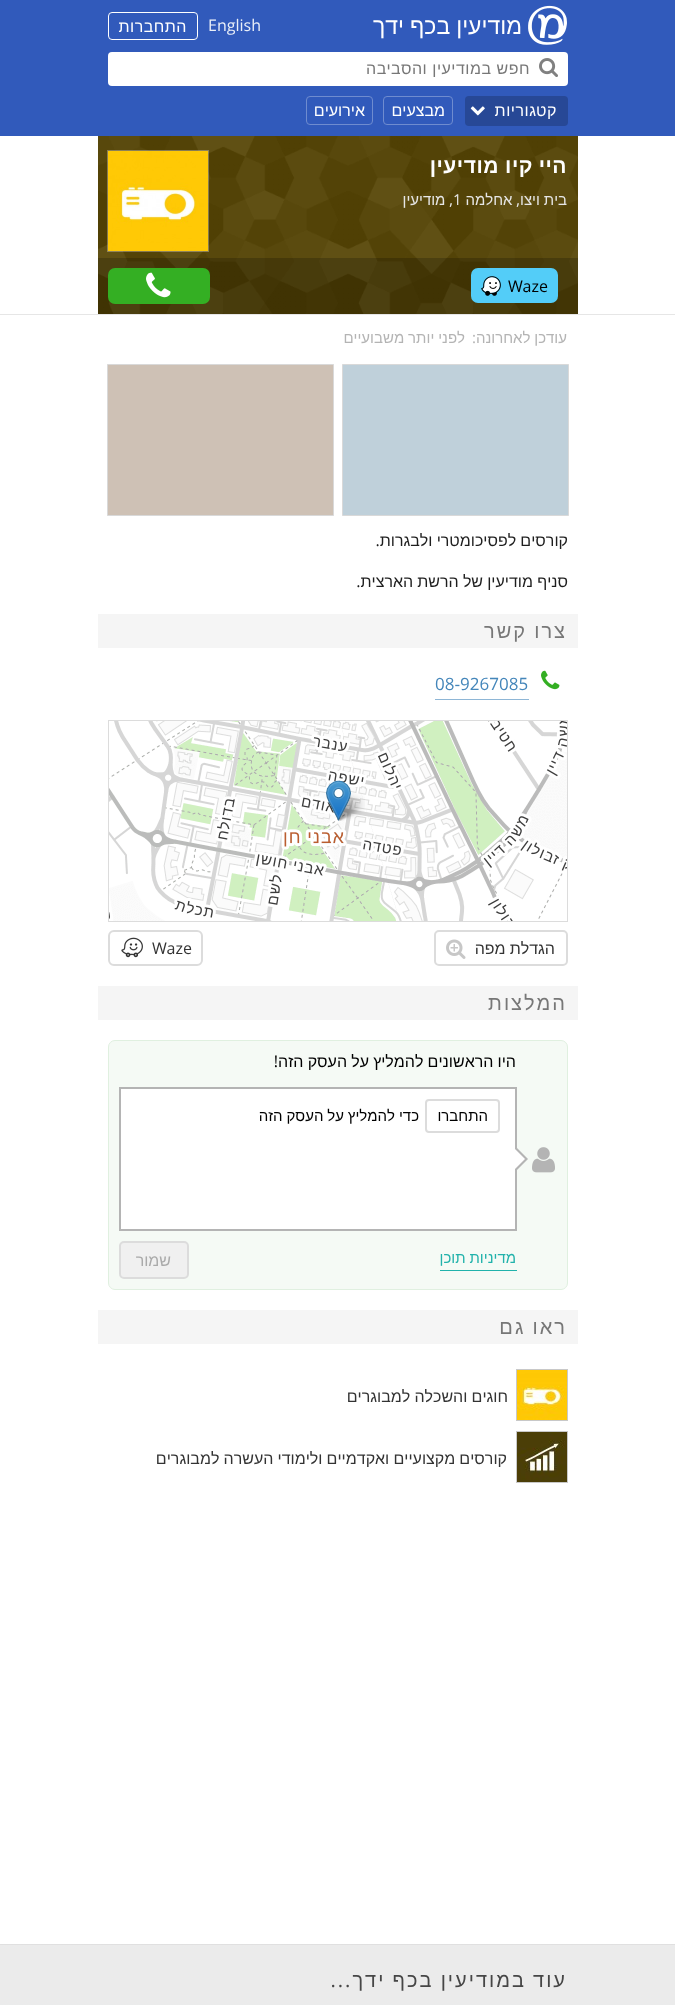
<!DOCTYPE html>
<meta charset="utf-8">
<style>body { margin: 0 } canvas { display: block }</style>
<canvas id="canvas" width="675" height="2005"></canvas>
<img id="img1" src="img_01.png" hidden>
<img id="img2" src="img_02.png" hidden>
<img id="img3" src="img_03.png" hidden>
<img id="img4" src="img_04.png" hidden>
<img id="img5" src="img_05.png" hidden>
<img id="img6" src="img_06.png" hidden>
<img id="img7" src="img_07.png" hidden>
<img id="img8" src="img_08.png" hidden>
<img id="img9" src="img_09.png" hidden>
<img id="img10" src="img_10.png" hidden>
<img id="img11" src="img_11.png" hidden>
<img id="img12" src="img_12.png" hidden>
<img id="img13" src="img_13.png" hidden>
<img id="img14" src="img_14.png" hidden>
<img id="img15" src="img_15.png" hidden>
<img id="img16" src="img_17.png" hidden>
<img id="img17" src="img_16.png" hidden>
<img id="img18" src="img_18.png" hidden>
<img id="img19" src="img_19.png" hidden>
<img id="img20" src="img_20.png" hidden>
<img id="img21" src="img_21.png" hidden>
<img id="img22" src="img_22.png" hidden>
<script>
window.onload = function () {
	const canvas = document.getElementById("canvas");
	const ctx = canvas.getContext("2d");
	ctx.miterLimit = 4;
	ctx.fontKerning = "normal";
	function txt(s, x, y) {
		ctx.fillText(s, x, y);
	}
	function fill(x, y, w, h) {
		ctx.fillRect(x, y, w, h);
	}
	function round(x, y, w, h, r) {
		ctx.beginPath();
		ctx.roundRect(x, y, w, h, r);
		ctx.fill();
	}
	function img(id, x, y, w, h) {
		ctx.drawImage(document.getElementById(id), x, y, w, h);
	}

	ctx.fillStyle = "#FFFFFF";
	fill(0, 0, 675, 2005);
	ctx.fillStyle = "#315ABB";
	fill(0, 0, 675, 136);
	img("img1", 528, 5, 39, 40);
	ctx.beginPath();
	ctx.roundRect(108.5, 12.5, 89, 27, 3.5);
	ctx.strokeStyle = "#FFFFFF";
	ctx.stroke();
	ctx.fillStyle = "#FFFFFF";
	round(108, 52, 460, 34, 4);
	img("img2", 539, 58, 19, 19);
	ctx.fillStyle = "#274896";
	round(465, 96, 103, 30, 4);
	img("img3", 470, 106, 15, 10);
	ctx.beginPath();
	ctx.roundRect(383.5, 96.5, 69, 28, 3.5);
	ctx.strokeStyle = "#6F8CCF";
	ctx.stroke();
	ctx.beginPath();
	ctx.roundRect(306.5, 96.5, 66, 28, 3.5);
	ctx.stroke();
	ctx.fillStyle = "#E6E6E6";
	fill(0, 314, 675, 1);
	ctx.fillStyle = "#FCC602";
	fill(98, 136, 480, 178);
	img("img4", 98, 136, 480, 178);
	ctx.strokeStyle = "rgba(255, 255, 255, 0.3)";
	ctx.strokeRect(107.5, 150.5, 101, 101);
	img("img5", 108, 151, 100, 100);
	ctx.fillStyle = "rgba(0, 0, 0, 0.2)";
	fill(98, 258, 480, 56);
	ctx.fillStyle = "#53CDF8";
	round(471, 268, 87, 35, 7);
	img("img6", 481, 276, 20, 20);
	ctx.fillStyle = "#34AF23";
	round(108, 268, 102, 36, 7);
	img("img7", 146, 272, 25, 26);
	ctx.fillStyle = "#BFD0DA";
	ctx.beginPath();
	ctx.rect(342.5, 364.5, 226, 151);
	ctx.fill();
	ctx.strokeStyle = "#D9D9D9";
	ctx.stroke();
	ctx.fillStyle = "#CEC1B5";
	ctx.beginPath();
	ctx.rect(107.5, 364.5, 226, 151);
	ctx.fill();
	ctx.stroke();
	ctx.fillStyle = "#F5F5F5";
	fill(98, 614, 480, 34);
	img("img8", 541, 670, 19, 20);
	ctx.fillStyle = "#8EB6D6";
	fill(435, 699, 94, 1);
	ctx.strokeStyle = "#DCDCDC";
	ctx.strokeRect(108.5, 720.5, 459, 201);
	img("img9", 333, 721, 224, 4);
	img("img10", 109, 721, 224, 4);
	img("img11", 333, 725, 234, 196);
	img("img12", 109, 725, 224, 196);
	img("img13", 488, 721, 79, 4);
	img("img14", 333, 725, 234, 196);
	img("img15", 109, 734, 224, 187);
	img("img16", 336, 793, 29, 28);
	img("img17", 326, 780, 25, 41);
	ctx.beginPath();
	ctx.roundRect(435, 931, 132, 34, 4);
	ctx.lineWidth = 2;
	ctx.stroke();
	img("img18", 446, 939, 20, 20);
	ctx.beginPath();
	ctx.roundRect(109, 931, 93, 34, 5);
	ctx.stroke();
	img("img19", 121, 937, 22, 21);
	ctx.fillStyle = "#F5F5F5";
	fill(98, 986, 480, 34);
	ctx.fillStyle = "#F5FAF5";
	ctx.beginPath();
	ctx.roundRect(108.5, 1040.5, 459, 249, 6.5);
	ctx.fill();
	ctx.strokeStyle = "#E0F0E0";
	ctx.lineWidth = 1;
	ctx.stroke();
	ctx.fillStyle = "#FFFFFF";
	ctx.beginPath();
	ctx.rect(120, 1088, 396, 142);
	ctx.fill();
	ctx.strokeStyle = "#B4B4B4";
	ctx.lineWidth = 2;
	ctx.stroke();
	ctx.beginPath();
	ctx.roundRect(426, 1100, 73, 32, 3);
	ctx.strokeStyle = "#DCDCDC";
	ctx.stroke();
	img("img20", 532, 1147, 23, 26);
	ctx.fillStyle = "#B4B4B4";
	ctx.beginPath();
	ctx.moveTo(515, 1172);
	ctx.lineTo(515, 1146);
	ctx.lineTo(528, 1159);
	ctx.closePath();
	ctx.fill();
	ctx.fillStyle = "#FFFFFF";
	ctx.beginPath();
	ctx.moveTo(515, 1169);
	ctx.lineTo(515, 1149);
	ctx.lineTo(525, 1159);
	ctx.closePath();
	ctx.fill();
	ctx.fillStyle = "#21B2AB";
	fill(440, 1270, 77, 1);
	ctx.fillStyle = "#F0F0F0";
	ctx.beginPath();
	ctx.roundRect(120, 1242, 68, 36, 4);
	ctx.fill();
	ctx.stroke();
	ctx.fillStyle = "#F5F5F5";
	fill(98, 1310, 480, 34);
	ctx.strokeStyle = "#C8C8C8";
	ctx.lineWidth = 1;
	ctx.strokeRect(516.5, 1369.5, 51, 51);
	img("img21", 517, 1370, 50, 50);
	ctx.strokeRect(516.5, 1431.5, 51, 51);
	img("img22", 517, 1432, 50, 50);
	ctx.fillStyle = "#EBEBEB";
	fill(0, 1945, 675, 60);
	ctx.fillStyle = "#E0E0E0";
	fill(0, 1944, 675, 1);
	ctx.direction = "rtl";
	ctx.font = "23px Arimo";
	ctx.fillStyle = "#FFFFFF";
	txt("מודיעין בכף ידך", 522, 34);
	ctx.direction = "ltr";
	ctx.font = "16px Arimo";
	ctx.fillStyle = "#EAEFF8";
	txt("English", 208, 31);
	ctx.letterSpacing = "0.5px";
	ctx.direction = "rtl";
	ctx.fillStyle = "#FFFFFF";
	txt("התחברות", 187, 32);
	ctx.font = "16px Liberation Sans";
	ctx.fillStyle = "#777777";
	txt("חפש במודיעין והסביבה", 530, 74);
	ctx.fillStyle = "#FFFFFF";
	txt("קטגוריות", 557, 116);
	ctx.letterSpacing = "0px";
	ctx.font = "16px Arimo";
	txt("מבצעים", 445, 116);
	txt("אירועים", 365, 116);
	ctx.letterSpacing = "0.5px";
	ctx.font = "bold 21px Arimo";
	txt("היי", 567, 173);
	txt("קיו", 533, 173);
	txt("מודיעין", 499, 173);
	ctx.letterSpacing = "0px";
	ctx.font = "15px Arimo";
	ctx.fillStyle = "#E6E6E6";
	txt("בית ויצו, אחלמה", 567, 205);
	ctx.direction = "ltr";
	txt("1", 453, 205);
	ctx.direction = "rtl";
	txt(", מודיעין", 453, 205);
	ctx.direction = "ltr";
	ctx.font = "16px Arimo";
	ctx.fillStyle = "#000000";
	txt("Waze", 508, 292);
	ctx.direction = "rtl";
	ctx.font = "15px Arimo";
	ctx.fillStyle = "#B4B4B4";
	txt("עודכן לאחרונה:", 567, 343);
	txt("לפני יותר משבועיים", 465, 343);
	ctx.font = "16px Arimo";
	ctx.fillStyle = "#1E1E1E";
	txt("קורסים לפסיכומטרי ולבגרות.", 568, 546);
	txt("סניף מודיעין של הרשת הארצית.", 568, 587);
	ctx.letterSpacing = "2px";
	ctx.font = "20px Arimo";
	ctx.fillStyle = "#777777";
	txt("צרו קשר", 567, 638);
	ctx.letterSpacing = "0px";
	ctx.direction = "ltr";
	ctx.font = "17px Arimo";
	ctx.fillStyle = "#4486BA";
	txt("08-9267085", 435, 690);
	ctx.direction = "rtl";
	ctx.font = "16px Arimo";
	ctx.fillStyle = "#333333";
	txt("הגדלת מפה", 555, 954);
	ctx.direction = "ltr";
	txt("Waze", 152, 954);
	ctx.letterSpacing = "2px";
	ctx.direction = "rtl";
	ctx.font = "20px Arimo";
	ctx.fillStyle = "#777777";
	txt("המלצות", 567, 1010);
	ctx.letterSpacing = "0px";
	ctx.font = "16px Arimo";
	ctx.fillStyle = "#000000";
	txt("היו הראשונים להמליץ על העסק הזה!", 516, 1067);
	ctx.font = "15px Arimo";
	txt("התחברו", 488, 1121);
	txt("כדי להמליץ על העסק הזה", 419, 1121);
	ctx.fillStyle = "#21B2AB";
	txt("מדיניות תוכן", 516, 1263);
	ctx.font = "16px Arimo";
	ctx.fillStyle = "#AAAAAA";
	txt("שמור", 171, 1266);
	ctx.letterSpacing = "2px";
	ctx.font = "20px Arimo";
	ctx.fillStyle = "#777777";
	txt("ראו גם", 567, 1334);
	ctx.letterSpacing = "0px";
	ctx.font = "16px Arimo";
	ctx.fillStyle = "#333333";
	txt("חוגים והשכלה למבוגרים", 508, 1402);
	txt("קורסים מקצועיים ואקדמיים ולימודי העשרה למבוגרים", 507, 1464);
	ctx.letterSpacing = "2px";
	ctx.font = "20px Arimo";
	ctx.fillStyle = "#464646";
	txt("עוד במודיעין בכף ידך...", 567, 1987);
};
</script>
